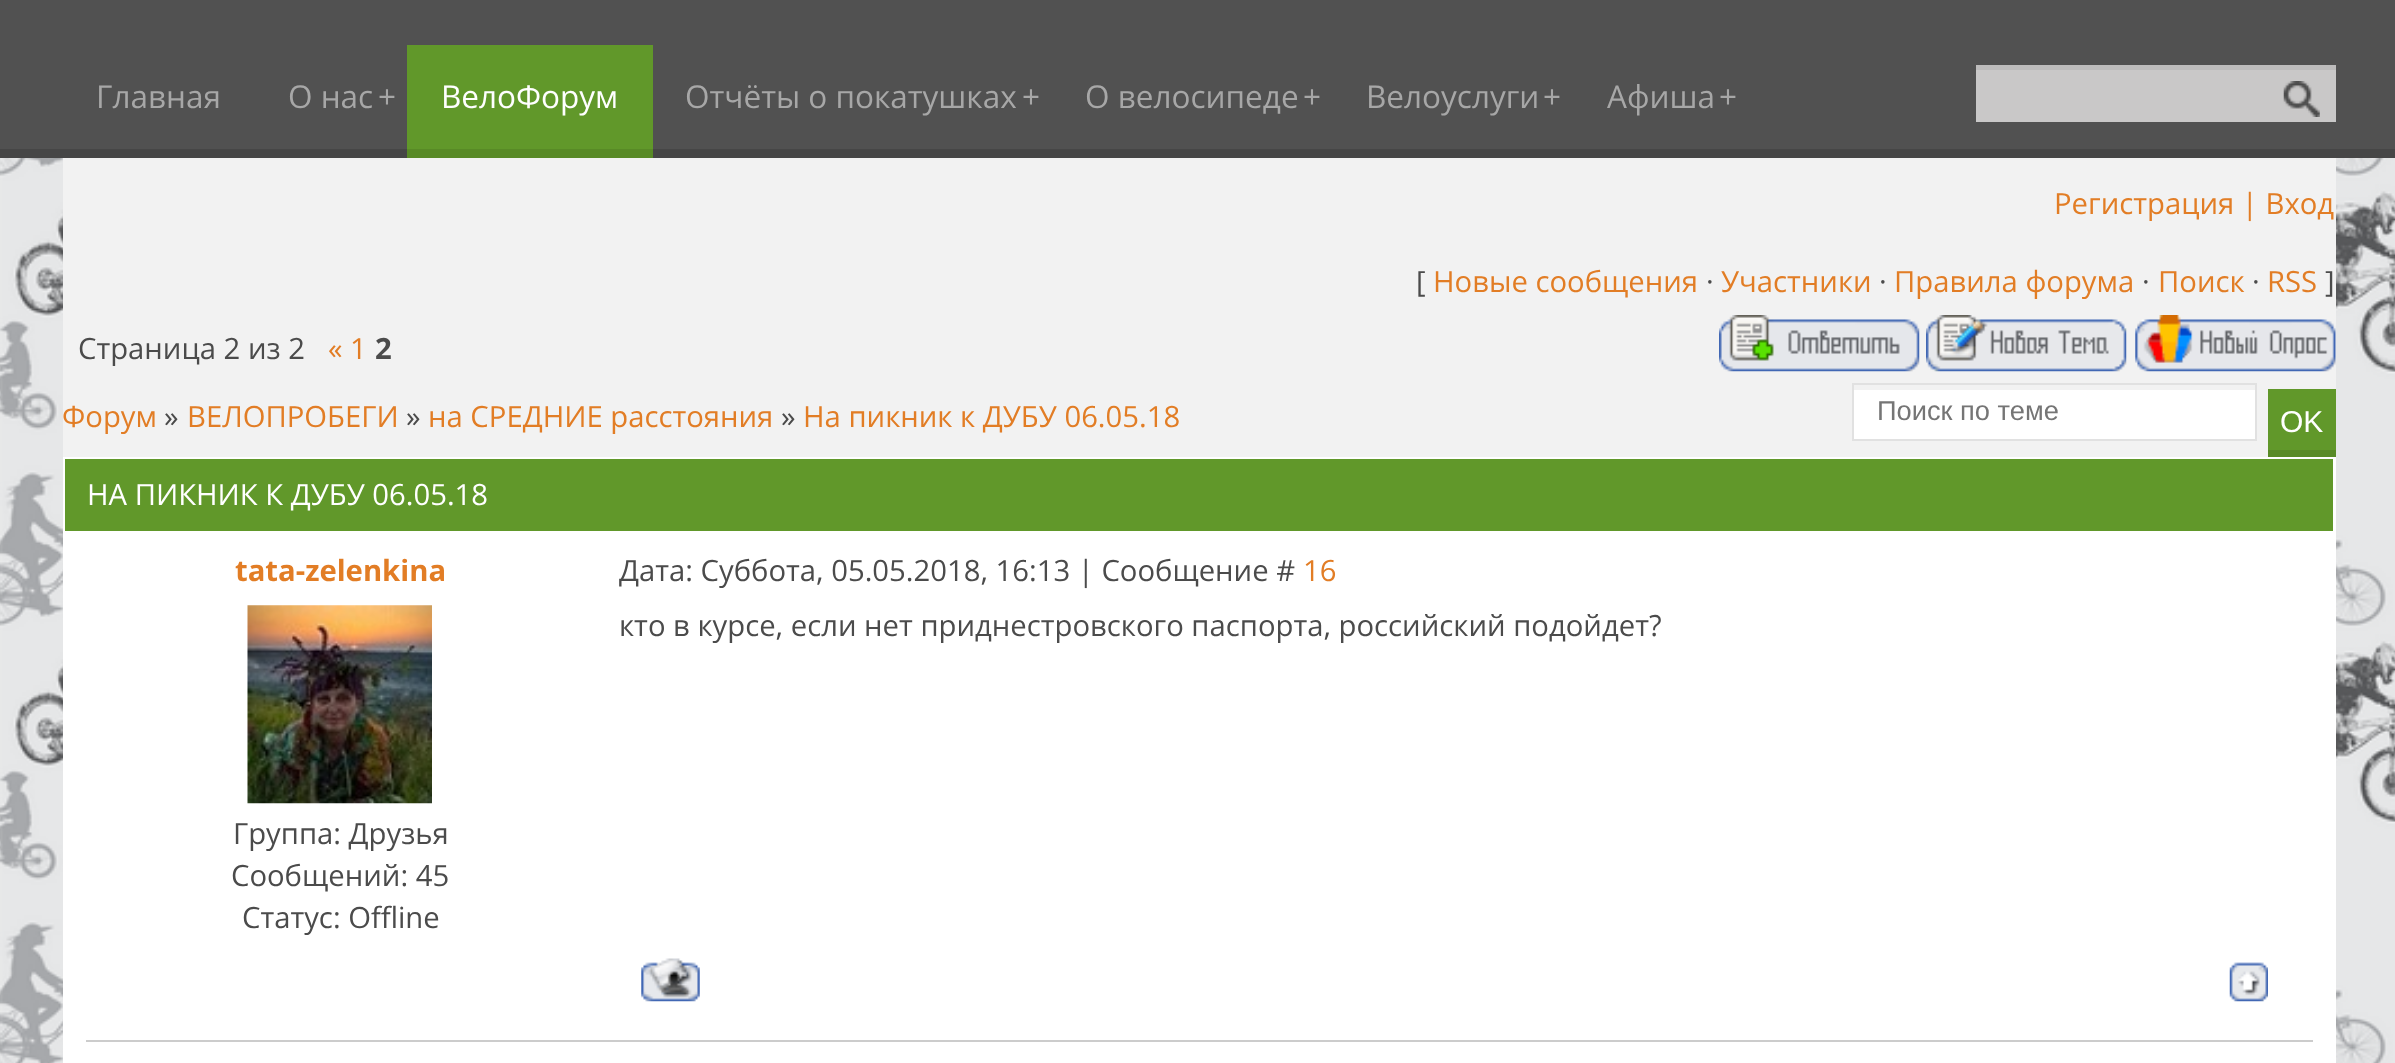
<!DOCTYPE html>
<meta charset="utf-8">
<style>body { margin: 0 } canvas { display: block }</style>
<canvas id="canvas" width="2395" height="1063"></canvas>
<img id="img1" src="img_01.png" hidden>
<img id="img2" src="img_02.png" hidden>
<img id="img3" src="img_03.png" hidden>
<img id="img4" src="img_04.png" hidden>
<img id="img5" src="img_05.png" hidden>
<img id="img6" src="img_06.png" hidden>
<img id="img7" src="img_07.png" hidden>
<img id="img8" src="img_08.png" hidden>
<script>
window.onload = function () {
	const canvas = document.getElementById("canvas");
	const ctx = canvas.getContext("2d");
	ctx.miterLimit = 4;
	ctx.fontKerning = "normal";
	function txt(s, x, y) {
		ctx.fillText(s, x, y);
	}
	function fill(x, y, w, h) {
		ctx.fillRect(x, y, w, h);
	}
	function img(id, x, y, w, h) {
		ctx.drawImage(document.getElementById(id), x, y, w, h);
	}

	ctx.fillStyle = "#FFFFFF";
	fill(0, 0, 2395, 1063);
	img("img1", 0, 158, 2395, 905);
	ctx.fillStyle = "#515151";
	fill(0, 0, 2395, 149);
	ctx.fillStyle = "#464646";
	fill(0, 149, 2395, 9);
	ctx.fillStyle = "#61982A";
	fill(407, 45, 246, 104);
	ctx.fillStyle = "#588A26";
	fill(407, 149, 246, 9);
	ctx.fillStyle = "#C9C8C8";
	fill(1976, 70, 360, 52);
	ctx.fillStyle = "#BDBCBC";
	fill(1976, 65, 360, 5);
	img("img2", 2283, 81, 37, 36);
	ctx.fillStyle = "#F2F2F2";
	fill(63, 158, 2273, 299);
	img("img3", 1719, 315, 201, 57);
	img("img4", 1926, 315, 201, 57);
	img("img5", 2135, 315, 201, 57);
	ctx.fillStyle = "#FFFFFF";
	fill(1854, 390, 401, 49);
	ctx.strokeStyle = "#E1E1E1";
	ctx.lineWidth = 2;
	ctx.strokeRect(1853, 384, 403, 56);
	ctx.fillStyle = "#61982A";
	fill(2268, 389, 68, 61);
	ctx.fillStyle = "#588A26";
	fill(2268, 450, 68, 7);
	ctx.fillStyle = "#FFFFFF";
	fill(63, 457, 2273, 606);
	ctx.fillStyle = "#61982A";
	fill(65, 459, 2268, 72);
	img("img6", 247, 605, 185, 199);
	img("img7", 641, 958, 59, 44);
	img("img8", 2229, 962, 39, 40);
	ctx.fillStyle = "#CCCCCC";
	fill(86, 1040, 2227, 2);
	ctx.font = "31.5px Open Sans";
	ctx.fillStyle = "#A7A7A7";
	txt("Главная", 96, 108);
	txt("О нас", 288, 108);
	txt("+", 378, 108);
	ctx.fillStyle = "#FFFFFF";
	txt("ВелоФорум", 441, 108);
	ctx.fillStyle = "#A7A7A7";
	txt("Отчёты о покатушках", 685, 108);
	txt("+", 1022, 108);
	txt("О велосипеде", 1085, 108);
	txt("+", 1303, 108);
	txt("Велоуслуги", 1366, 108);
	txt("+", 1543, 108);
	txt("Афиша", 1607, 108);
	txt("+", 1719, 108);
	ctx.font = "29.25px Open Sans";
	ctx.fillStyle = "#E27D25";
	txt("Регистрация | Вход", 2054, 214);
	ctx.fillStyle = "#4B4B4B";
	txt("[", 1416, 292);
	ctx.fillStyle = "#E27D25";
	txt("Новые сообщения", 1433, 292);
	ctx.fillStyle = "#4B4B4B";
	txt("·", 1706, 292);
	ctx.fillStyle = "#E27D25";
	txt("Участники", 1721, 292);
	ctx.fillStyle = "#4B4B4B";
	txt("·", 1879, 292);
	ctx.fillStyle = "#E27D25";
	txt("Правила форума", 1894, 292);
	ctx.fillStyle = "#4B4B4B";
	txt("·", 2142, 292);
	ctx.fillStyle = "#E27D25";
	txt("Поиск", 2158, 292);
	ctx.fillStyle = "#4B4B4B";
	txt("·", 2252, 292);
	ctx.fillStyle = "#E27D25";
	txt("RSS", 2267, 292);
	ctx.fillStyle = "#4B4B4B";
	txt("]", 2325, 292);
	txt("Страница 2 из 2", 78, 359);
	ctx.fillStyle = "#E27D25";
	txt("« 1", 328, 359);
	ctx.font = "bold 29.25px Open Sans";
	ctx.fillStyle = "#4B4B4B";
	txt("2", 375, 359);
	ctx.font = "29.25px Open Sans";
	ctx.fillStyle = "#E27D25";
	txt("Форум", 62, 427);
	ctx.fillStyle = "#4B4B4B";
	txt("»", 164, 427);
	ctx.fillStyle = "#E27D25";
	txt("ВЕЛОПРОБЕГИ", 187, 427);
	ctx.fillStyle = "#4B4B4B";
	txt("»", 406, 427);
	ctx.fillStyle = "#E27D25";
	txt("на СРЕДНИЕ расстояния", 428, 427);
	ctx.fillStyle = "#4B4B4B";
	txt("»", 781, 427);
	ctx.fillStyle = "#E27D25";
	txt("На пикник к ДУБУ 06.05.18", 803, 427);
	ctx.font = "27.25px Liberation Sans";
	ctx.fillStyle = "#757575";
	txt("Поиск по теме", 1877, 420);
	ctx.font = "30px Liberation Sans";
	ctx.fillStyle = "#FFFFFF";
	txt("OK", 2280, 432);
	ctx.font = "29.25px Open Sans";
	txt("НА ПИКНИК К ДУБУ 06.05.18", 87, 505);
	ctx.font = "bold 29.25px Open Sans";
	ctx.fillStyle = "#E27D25";
	txt("tata-zelenkina", 235, 581);
	ctx.font = "29.25px Open Sans";
	ctx.fillStyle = "#4B4B4B";
	txt("Дата: Суббота, 05.05.2018, 16:13 | Сообщение #", 619, 581);
	ctx.fillStyle = "#E27D25";
	txt("16", 1303, 581);
	ctx.fillStyle = "#4B4B4B";
	txt("кто в курсе, если нет приднестровского паспорта, российский подойдет?", 619, 636);
	txt("Группа: Друзья", 233, 844);
	txt("Сообщений: 45", 231, 886);
	txt("Статус: Offline", 242, 928);
};
</script>
